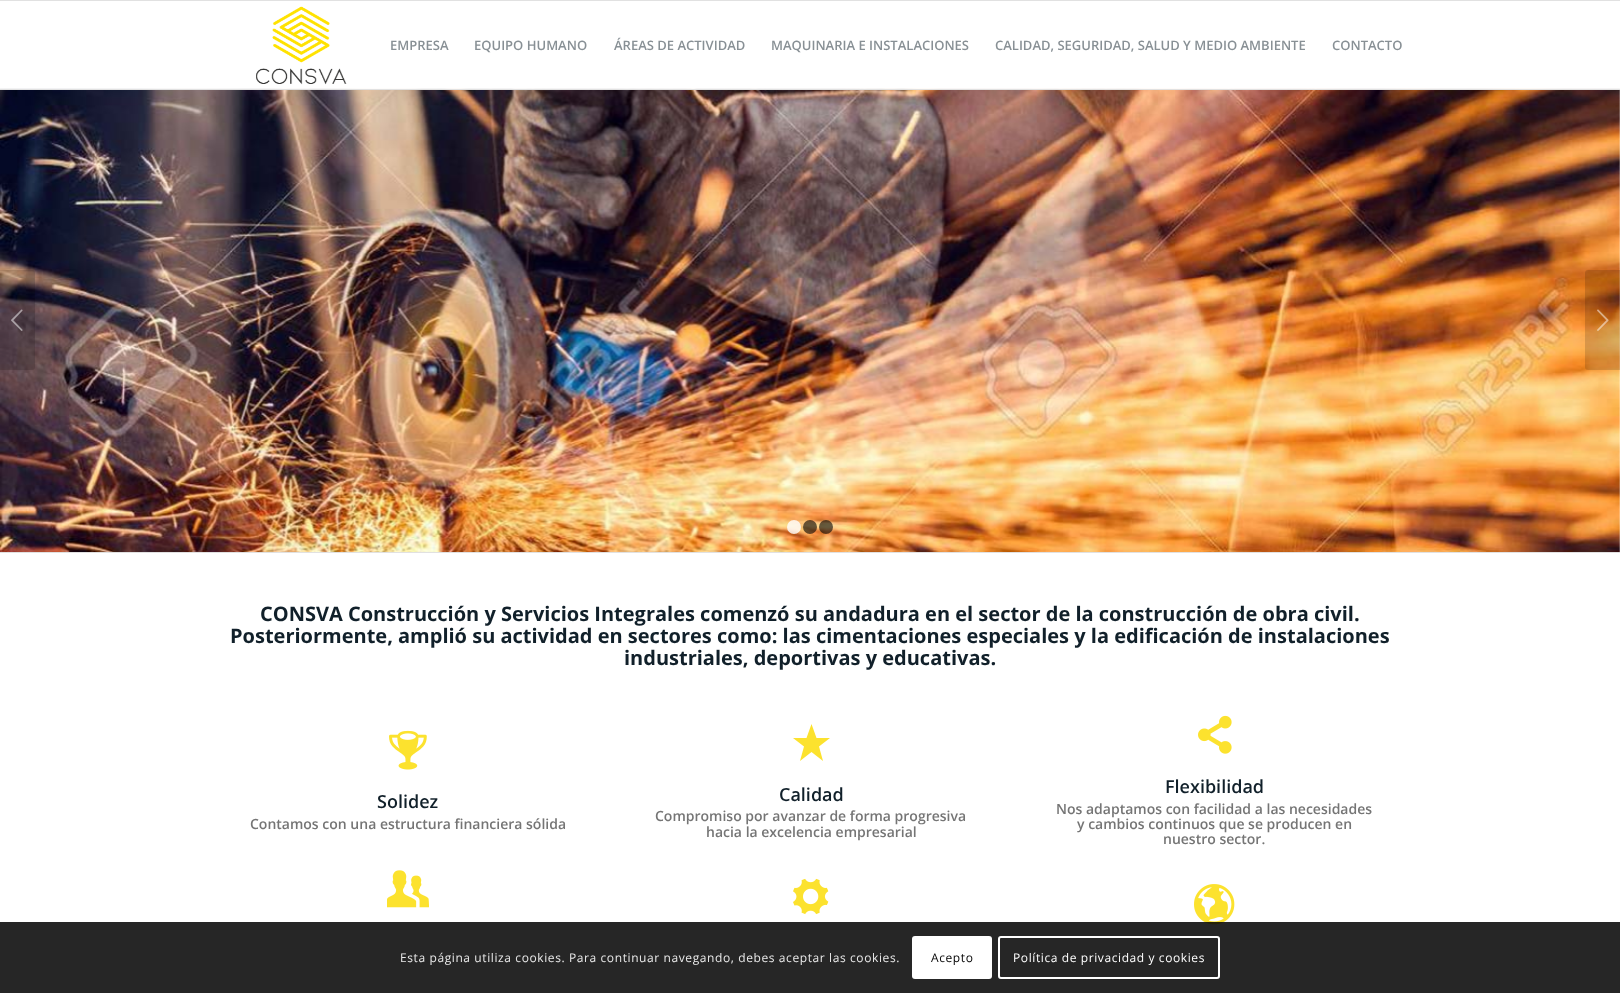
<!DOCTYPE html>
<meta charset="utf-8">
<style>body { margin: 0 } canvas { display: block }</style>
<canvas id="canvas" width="1620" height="993"></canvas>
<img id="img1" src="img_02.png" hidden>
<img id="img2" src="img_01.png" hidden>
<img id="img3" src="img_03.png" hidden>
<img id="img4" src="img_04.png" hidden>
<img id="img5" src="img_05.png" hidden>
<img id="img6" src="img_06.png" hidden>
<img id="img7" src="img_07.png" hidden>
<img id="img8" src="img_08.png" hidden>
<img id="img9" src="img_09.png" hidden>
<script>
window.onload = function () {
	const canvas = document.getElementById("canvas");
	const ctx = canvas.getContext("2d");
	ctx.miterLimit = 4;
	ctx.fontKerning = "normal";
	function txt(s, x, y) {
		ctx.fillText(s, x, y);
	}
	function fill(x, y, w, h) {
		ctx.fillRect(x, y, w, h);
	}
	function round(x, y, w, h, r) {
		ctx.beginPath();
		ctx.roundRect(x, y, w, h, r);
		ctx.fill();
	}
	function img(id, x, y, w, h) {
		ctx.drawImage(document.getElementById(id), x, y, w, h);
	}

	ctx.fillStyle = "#FFFFFF";
	fill(0, 0, 1620, 993);
	ctx.fillStyle = "#E1E1E1";
	fill(0, 0, 1620, 1);
	img("img1", 0, 88, 1620, 464);
	fill(0, 89, 1620, 1);
	img("img2", 256, 6, 91, 79);
	ctx.fillStyle = "rgba(255, 255, 255, 0.95)";
	fill(0, 88, 1620, 1);
	ctx.fillStyle = "rgba(0, 0, 0, 0.15)";
	ctx.beginPath();
	ctx.roundRect(0, 270, 35, 100, [0, 3, 3, 0]);
	ctx.fill();
	img("img3", 11, 309, 12, 22);
	ctx.beginPath();
	ctx.roundRect(1585, 270, 35, 100, [3, 0, 0, 3]);
	ctx.fill();
	img("img4", 1597, 309, 12, 22);
	ctx.fillStyle = "rgba(255, 255, 255, 0.8)";
	ctx.beginPath();
	ctx.arc(794, 527, 7, 0, Math.PI * 2);
	ctx.fill();
	ctx.fillStyle = "rgba(0, 0, 0, 0.6)";
	ctx.beginPath();
	ctx.arc(810, 527, 7, 0, Math.PI * 2);
	ctx.fill();
	ctx.beginPath();
	ctx.arc(826, 527, 7, 0, Math.PI * 2);
	ctx.fill();
	ctx.fillStyle = "#E1E1E1";
	fill(0, 552, 1620, 1);
	img("img5", 389, 730, 38, 40);
	ctx.fillStyle = "#FCE22E";
	ctx.beginPath();
	ctx.moveTo(811.5, 724);
	ctx.lineTo(816.5, 738);
	ctx.lineTo(830, 738);
	ctx.lineTo(819, 746.5);
	ctx.lineTo(823, 761);
	ctx.lineTo(811.5, 752);
	ctx.lineTo(800, 761);
	ctx.lineTo(804, 746.5);
	ctx.lineTo(793, 738);
	ctx.lineTo(806.5, 738);
	ctx.closePath();
	ctx.fill();
	img("img6", 1198, 715, 34, 39);
	img("img7", 387, 870, 42, 38);
	img("img8", 793, 878, 36, 37);
	img("img9", 1194, 884, 41, 41);
	ctx.fillStyle = "rgba(0, 0, 0, 0.85)";
	fill(0, 922, 1620, 71);
	ctx.fillStyle = "#FFFFFF";
	round(912, 936, 80, 43, 3);
	ctx.beginPath();
	ctx.roundRect(999, 937, 220, 41, 2);
	ctx.strokeStyle = "#FFFFFF";
	ctx.lineWidth = 2;
	ctx.stroke();
	ctx.font = "600 13px Open Sans";
	ctx.fillStyle = "#889095";
	txt("EMPRESA", 390, 50);
	txt("EQUIPO HUMANO", 474, 50);
	txt("ÁREAS DE ACTIVIDAD", 614, 50);
	txt("MAQUINARIA E INSTALACIONES", 771, 50);
	txt("CALIDAD, SEGURIDAD, SALUD Y MEDIO AMBIENTE", 995, 50);
	txt("CONTACTO", 1332, 50);
	ctx.font = "bold 20px Open Sans";
	ctx.fillStyle = "#11202A";
	txt("CONSVA Construcción y Servicios Integrales comenzó su andadura en el sector de la construcción de obra civil.", 260, 621);
	txt("Posteriormente, amplió su actividad en sectores como: las cimentaciones especiales y la edificación de instalaciones", 230, 643);
	txt("industriales, deportivas y educativas.", 624, 665);
	ctx.font = "600 18px Open Sans";
	txt("Solidez", 377, 808);
	ctx.font = "600 14px Open Sans";
	ctx.fillStyle = "#757575";
	txt("Contamos con una estructura financiera sólida", 250, 829);
	ctx.font = "600 18px Open Sans";
	ctx.fillStyle = "#11202A";
	txt("Calidad", 779, 801);
	ctx.font = "600 14px Open Sans";
	ctx.fillStyle = "#757575";
	txt("Compromiso por avanzar de forma progresiva", 655, 821);
	txt("hacia la excelencia empresarial", 706, 837);
	ctx.font = "600 18px Open Sans";
	ctx.fillStyle = "#11202A";
	txt("Flexibilidad", 1165, 793);
	ctx.font = "600 14px Open Sans";
	ctx.fillStyle = "#757575";
	txt("Nos adaptamos con facilidad a las necesidades", 1056, 814);
	txt("y cambios continuos que se producen en", 1077, 829);
	txt("nuestro sector.", 1163, 844);
	ctx.letterSpacing = "0.6px";
	ctx.font = "12px Open Sans";
	ctx.fillStyle = "#E9E9E9";
	txt("Esta página utiliza cookies. Para continuar navegando, debes aceptar las cookies.", 400, 962);
	ctx.fillStyle = "#000000";
	txt("Acepto", 931, 962);
	ctx.fillStyle = "#FFFFFF";
	txt("Política de privacidad y cookies", 1013, 962);
};
</script>
